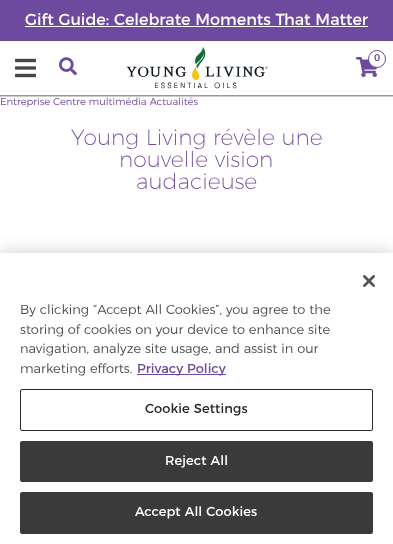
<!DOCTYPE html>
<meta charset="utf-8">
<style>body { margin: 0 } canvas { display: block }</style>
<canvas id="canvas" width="393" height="544"></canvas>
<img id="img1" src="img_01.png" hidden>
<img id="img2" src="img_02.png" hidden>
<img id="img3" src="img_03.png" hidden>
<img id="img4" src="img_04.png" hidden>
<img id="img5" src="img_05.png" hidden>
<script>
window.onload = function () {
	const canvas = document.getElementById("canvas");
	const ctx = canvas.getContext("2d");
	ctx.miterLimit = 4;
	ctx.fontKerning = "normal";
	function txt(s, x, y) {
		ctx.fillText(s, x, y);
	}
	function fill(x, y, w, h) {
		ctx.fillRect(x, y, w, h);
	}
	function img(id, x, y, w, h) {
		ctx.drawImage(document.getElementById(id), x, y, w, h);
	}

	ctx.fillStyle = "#FFFFFF";
	fill(0, 0, 393, 544);
	ctx.fillStyle = "#6E4A9E";
	fill(0, 0, 393, 41);
	ctx.fillStyle = "#FFFFFF";
	fill(25, 26, 343, 1);
	ctx.fillStyle = "#999999";
	fill(0, 95, 393, 1);
	img("img1", 15, 58, 21, 20);
	img("img2", 59, 57, 18, 19);
	img("img3", 126, 47, 142, 42);
	img("img4", 356, 57, 21, 20);
	ctx.fillStyle = "#FFFFFF";
	ctx.beginPath();
	ctx.arc(377, 59, 8.5, 0, Math.PI * 2);
	ctx.fill();
	ctx.strokeStyle = "#6E4A9E";
	ctx.stroke();
	ctx.fillStyle = "#CCCCCC";
	fill(0, 96, 393, 1);
	ctx.fillStyle = "rgba(0, 0, 0, 0.2)";
	ctx.filter = "blur(9px)";
	ctx.beginPath();
	ctx.rect(0, 253, 393, 291);
	ctx.fill();
	ctx.filter = "none";
	ctx.fillStyle = "#FFFFFF";
	fill(0, 253, 393, 291);
	img("img5", 363, 275, 12, 12);
	ctx.fillStyle = "#6E4A9E";
	fill(137, 374, 89, 1);
	ctx.beginPath();
	ctx.roundRect(20.5, 389.5, 352, 41, 1.5);
	ctx.strokeStyle = "#292929";
	ctx.stroke();
	ctx.fillStyle = "#3A3A3A";
	ctx.beginPath();
	ctx.roundRect(20.5, 441.5, 352, 40, 1.5);
	ctx.fill();
	ctx.strokeStyle = "#3A3A3A";
	ctx.stroke();
	ctx.beginPath();
	ctx.roundRect(20.5, 492.5, 352, 41, 1.5);
	ctx.fill();
	ctx.stroke();
	ctx.font = "16px Montserrat";
	ctx.fillStyle = "#FFFFFF";
	txt("Gift Guide: Celebrate Moments That Matter", 25, 25);
	ctx.font = "500 10px Montserrat";
	ctx.fillStyle = "#6E4A9E";
	txt("0", 374, 61);
	ctx.font = "300 10px Montserrat";
	txt("Entreprise Centre multimédia Actualités", 0, 105);
	ctx.font = "200 22px Montserrat";
	txt("Young Living révèle une", 71, 145);
	txt("nouvelle vision", 119, 167);
	txt("audacieuse", 136, 189);
	ctx.font = "300 13px Montserrat";
	ctx.fillStyle = "#4D4D4D";
	txt("By clicking “Accept All Cookies”, you agree to the", 20, 314);
	txt("storing of cookies on your device to enhance site", 20, 334);
	txt("navigation, analyze site usage, and assist in our", 20, 353);
	txt("marketing efforts.", 20, 373);
	ctx.font = "13px Montserrat";
	ctx.fillStyle = "#6E4A9E";
	txt("Privacy Policy", 137, 373);
	ctx.letterSpacing = "0.1px";
	ctx.fillStyle = "#292929";
	txt("Cookie Settings", 145, 413);
	ctx.fillStyle = "#FFFFFF";
	txt("Reject All", 165, 465);
	txt("Accept All Cookies", 135, 516);
};
</script>
